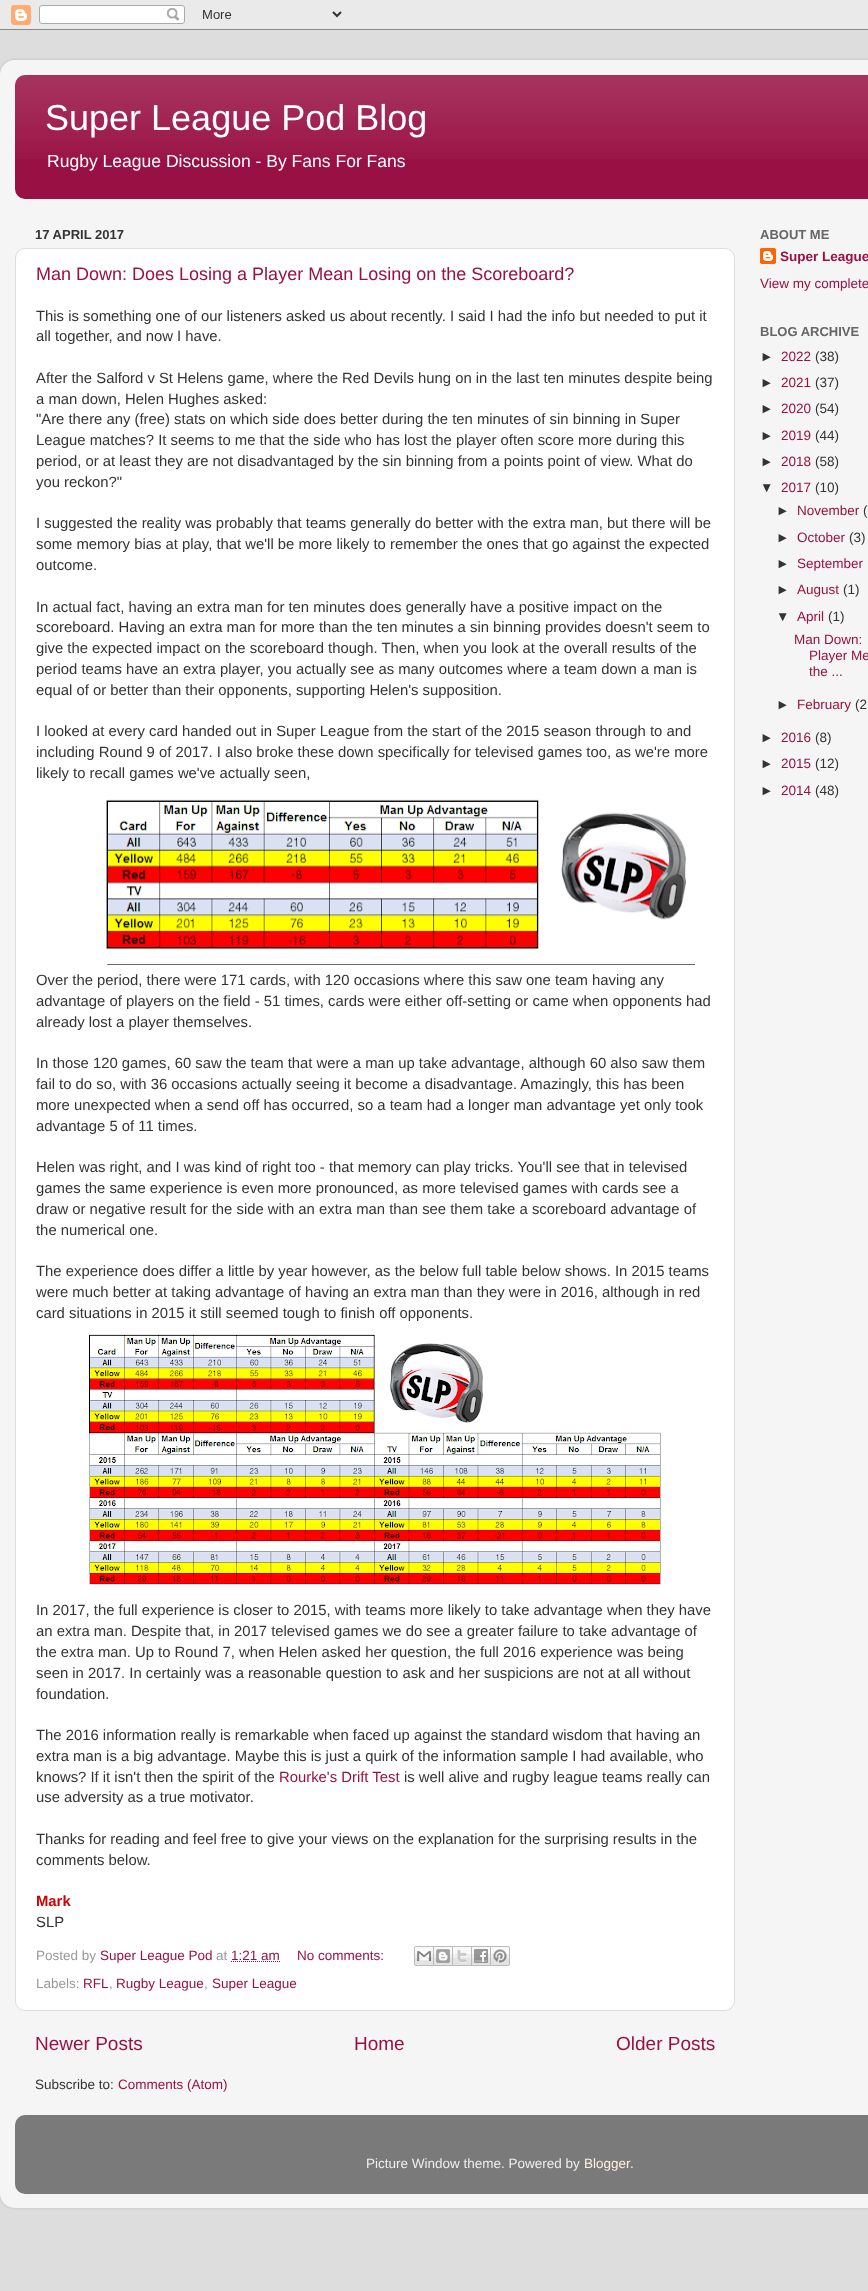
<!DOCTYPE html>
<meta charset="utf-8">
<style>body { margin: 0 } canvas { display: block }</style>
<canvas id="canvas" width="868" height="2291"></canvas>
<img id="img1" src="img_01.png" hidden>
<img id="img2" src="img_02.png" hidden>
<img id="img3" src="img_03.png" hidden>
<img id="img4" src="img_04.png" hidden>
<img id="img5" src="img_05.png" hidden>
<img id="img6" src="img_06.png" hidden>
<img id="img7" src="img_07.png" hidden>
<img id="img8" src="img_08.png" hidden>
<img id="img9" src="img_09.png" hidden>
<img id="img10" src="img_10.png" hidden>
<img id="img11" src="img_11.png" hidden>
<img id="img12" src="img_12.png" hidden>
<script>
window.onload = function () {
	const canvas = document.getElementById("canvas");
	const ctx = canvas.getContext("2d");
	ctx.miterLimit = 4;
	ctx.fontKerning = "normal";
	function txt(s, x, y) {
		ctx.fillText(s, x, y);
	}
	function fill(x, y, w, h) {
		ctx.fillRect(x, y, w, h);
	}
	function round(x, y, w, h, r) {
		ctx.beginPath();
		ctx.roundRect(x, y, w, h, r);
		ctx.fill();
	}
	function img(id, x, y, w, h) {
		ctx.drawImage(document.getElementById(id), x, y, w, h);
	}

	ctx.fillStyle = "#DDDDDD";
	fill(0, 0, 868, 2291);
	img("img1", 0, 0, 868, 30);
	ctx.save();
	ctx.beginPath();
	ctx.moveTo(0, 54);
	ctx.lineTo(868, 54);
	ctx.lineTo(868, 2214);
	ctx.lineTo(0, 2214);
	ctx.closePath();
	ctx.moveTo(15, 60);
	ctx.lineTo(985, 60);
	ctx.bezierCurveTo(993.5, 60, 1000, 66.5, 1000, 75);
	ctx.lineTo(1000, 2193);
	ctx.bezierCurveTo(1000, 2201.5, 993.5, 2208, 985, 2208);
	ctx.lineTo(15, 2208);
	ctx.bezierCurveTo(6.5, 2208, 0, 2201.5, 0, 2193);
	ctx.lineTo(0, 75);
	ctx.bezierCurveTo(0, 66.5, 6.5, 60, 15, 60);
	ctx.closePath();
	ctx.clip("evenodd");
	ctx.fillStyle = "rgba(0, 0, 0, 0.15)";
	ctx.filter = "blur(1.5px)";
	ctx.beginPath();
	ctx.roundRect(0, 60, 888, 2148, 15);
	ctx.fill();
	ctx.filter = "none";
	ctx.restore();
	img("img2", 0, 60, 868, 2148);
	ctx.fillStyle = "#991144";
	round(15, 75, 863, 124, 10);
	img("img3", 15, 75, 853, 84);
	ctx.fillStyle = "#FFFFFF";
	ctx.beginPath();
	ctx.roundRect(15.5, 248.5, 719, 1762, 9.5);
	ctx.fill();
	ctx.strokeStyle = "#DDDDDD";
	ctx.stroke();
	img("img4", 106, 799, 589, 166);
	img("img5", 89, 1334, 572, 251);
	ctx.beginPath();
	ctx.moveTo(231, 1961.5);
	ctx.lineTo(280, 1961.5);
	ctx.strokeStyle = "#991144";
	ctx.setLineDash([1, 1]);
	ctx.stroke();
	img("img6", 414, 1946, 20, 20);
	img("img7", 434, 1946, 19, 20);
	img("img8", 453, 1946, 19, 20);
	img("img9", 472, 1946, 19, 20);
	img("img10", 491, 1946, 19, 20);
	img("img11", 760, 248, 16, 16);
	img("img12", 15, 2115, 853, 79);
	ctx.font = "36px Liberation Sans";
	txt("Super League Pod Blog", 45, 130);
	ctx.font = "17.55px Liberation Sans";
	txt("Rugby League Discussion - By Fans For Fans", 47, 167);
	ctx.font = "bold 13px Liberation Sans";
	ctx.fillStyle = "#333333";
	txt("17 APRIL 2017", 35, 239);
	ctx.font = "18px Liberation Sans";
	ctx.fillStyle = "#991144";
	txt("Man Down: Does Losing a Player Mean Losing on the Scoreboard?", 36, 280);
	ctx.font = "14.85px Liberation Sans";
	ctx.fillStyle = "#333333";
	txt("This is something one of our listeners asked us about recently. I said I had the info but needed to put it", 36, 321);
	txt("all together, and now I have.", 36, 341);
	txt("After the Salford v St Helens game, where the Red Devils hung on in the last ten minutes despite being", 36, 383);
	txt("a man down, Helen Hughes asked:", 36, 404);
	txt("\"Are there any (free) stats on which side does better during the ten minutes of sin binning in Super", 36, 424);
	txt("League matches? It seems to me that the side who has lost the player often score more during this", 36, 445);
	txt("period, or at least they are not disadvantaged by the sin binning from a points point of view. What do", 36, 466);
	txt("you reckon?\"", 36, 487);
	txt("I suggested the reality was probably that teams generally do better with the extra man, but there will be", 36, 528);
	txt("some memory bias at play, that we'll be more likely to remember the ones that go against the expected", 36, 549);
	txt("outcome.", 36, 570);
	txt("In actual fact, having an extra man for ten minutes does generally have a positive impact on the", 36, 612);
	txt("scoreboard. Having an extra man for more than the ten minutes a sin binning provides doesn't seem to", 36, 632);
	txt("give the expected impact on the scoreboard though. Then, when you look at the overall results of the", 36, 653);
	txt("period teams have an extra player, you actually see as many outcomes where a team down a man is", 36, 674);
	txt("equal of or better than their opponents, supporting Helen's supposition.", 36, 695);
	txt("I looked at every card handed out in Super League from the start of the 2015 season through to and", 36, 736);
	txt("including Round 9 of 2017. I also broke these down specifically for televised games too, as we're more", 36, 757);
	txt("likely to recall games we've actually seen,", 36, 778);
	txt("Over the period, there were 171 cards, with 120 occasions where this saw one team having any", 36, 985);
	txt("advantage of players on the field - 51 times, cards were either off-setting or came when opponents had", 36, 1006);
	txt("already lost a player themselves.", 36, 1027);
	txt("In those 120 games, 60 saw the team that were a man up take advantage, although 60 also saw them", 36, 1068);
	txt("fail to do so, with 36 occasions actually seeing it become a disadvantage. Amazingly, this has been", 36, 1089);
	txt("more unexpected when a send off has occurred, so a team had a longer man advantage yet only took", 36, 1110);
	txt("advantage 5 of 11 times.", 36, 1131);
	txt("Helen was right, and I was kind of right too - that memory can play tricks. You'll see that in televised", 36, 1172);
	txt("games the same experience is even more pronounced, as more televised games with cards see a", 36, 1193);
	txt("draw or negative result for the side with an extra man than see them take a scoreboard advantage of", 36, 1214);
	txt("the numerical one.", 36, 1235);
	txt("The experience does differ a little by year however, as the below full table below shows. In 2015 teams", 36, 1276);
	txt("were much better at taking advantage of having an extra man than they were in 2016, although in red", 36, 1297);
	txt("card situations in 2015 it still seemed tough to finish off opponents.", 36, 1318);
	txt("In 2017, the full experience is closer to 2015, with teams more likely to take advantage when they have", 36, 1615);
	txt("an extra man. Despite that, in 2017 televised games we do see a greater failure to take advantage of", 36, 1636);
	txt("the extra man. Up to Round 7, when Helen asked her question, the full 2016 experience was being", 36, 1657);
	txt("seen in 2017. In certainly was a reasonable question to ask and her suspicions are not at all without", 36, 1678);
	txt("foundation.", 36, 1699);
	txt("The 2016 information really is remarkable when faced up against the standard wisdom that having an", 36, 1740);
	txt("extra man is a big advantage. Maybe this is just a quirk of the information sample I had available, who", 36, 1761);
	txt("knows? If it isn't then the spirit of the", 36, 1782);
	ctx.fillStyle = "#991144";
	txt("Rourke's Drift Test", 279, 1782);
	ctx.fillStyle = "#333333";
	txt("is well alive and rugby league teams really can", 404, 1782);
	txt("use adversity as a true motivator.", 36, 1802);
	txt("Thanks for reading and feel free to give your views on the explanation for the surprising results in the", 36, 1844);
	txt("comments below.", 36, 1865);
	ctx.font = "bold 14.85px Liberation Sans";
	ctx.fillStyle = "#CC0000";
	txt("Mark", 36, 1906);
	ctx.font = "14.85px Liberation Sans";
	ctx.fillStyle = "#333333";
	txt("SLP", 36, 1927);
	ctx.font = "13.5px Liberation Sans";
	ctx.fillStyle = "#999999";
	txt("Posted by", 36, 1960);
	ctx.fillStyle = "#991144";
	txt("Super League Pod", 100, 1960);
	ctx.fillStyle = "#999999";
	txt("at", 216, 1960);
	ctx.fillStyle = "#991144";
	txt("1:21 am", 231, 1960);
	txt("No comments:", 297, 1960);
	ctx.fillStyle = "#999999";
	txt("Labels:", 36, 1988);
	ctx.fillStyle = "#991144";
	txt("RFL", 83, 1988);
	ctx.fillStyle = "#999999";
	txt(",", 109, 1988);
	ctx.fillStyle = "#991144";
	txt("Rugby League", 116, 1988);
	ctx.fillStyle = "#999999";
	txt(",", 204, 1988);
	ctx.fillStyle = "#991144";
	txt("Super League", 212, 1988);
	ctx.font = "19px Liberation Sans";
	txt("Newer Posts", 35, 2050);
	txt("Home", 354, 2050);
	txt("Older Posts", 616, 2050);
	ctx.font = "13.5px Liberation Sans";
	ctx.fillStyle = "#333333";
	txt("Subscribe to:", 35, 2089);
	ctx.fillStyle = "#991144";
	txt("Comments (Atom)", 118, 2089);
	ctx.font = "bold 13px Liberation Sans";
	ctx.fillStyle = "#666666";
	txt("ABOUT ME", 760, 239);
	ctx.font = "bold 13.5px Liberation Sans";
	ctx.fillStyle = "#991144";
	txt("Super League", 780, 261);
	ctx.font = "13.5px Liberation Sans";
	txt("View my complete", 760, 288);
	ctx.font = "bold 13px Liberation Sans";
	ctx.fillStyle = "#666666";
	txt("BLOG ARCHIVE", 760, 336);
	ctx.font = "13.5px Liberation Sans";
	ctx.fillStyle = "#333333";
	txt("►", 760, 361);
	ctx.fillStyle = "#991144";
	txt("2022", 781, 361);
	ctx.fillStyle = "#333333";
	txt("(38)", 815, 361);
	txt("►", 760, 387);
	ctx.fillStyle = "#991144";
	txt("2021", 781, 387);
	ctx.fillStyle = "#333333";
	txt("(37)", 815, 387);
	txt("►", 760, 413);
	ctx.fillStyle = "#991144";
	txt("2020", 781, 413);
	ctx.fillStyle = "#333333";
	txt("(54)", 815, 413);
	txt("►", 760, 440);
	ctx.fillStyle = "#991144";
	txt("2019", 781, 440);
	ctx.fillStyle = "#333333";
	txt("(44)", 815, 440);
	txt("►", 760, 466);
	ctx.fillStyle = "#991144";
	txt("2018", 781, 466);
	ctx.fillStyle = "#333333";
	txt("(58)", 815, 466);
	txt("▼", 760, 492);
	ctx.fillStyle = "#991144";
	txt("2017", 781, 492);
	ctx.fillStyle = "#333333";
	txt("(10)", 815, 492);
	txt("►", 776, 515);
	ctx.fillStyle = "#991144";
	txt("November", 797, 515);
	ctx.fillStyle = "#333333";
	txt("(", 863, 515);
	txt("►", 776, 542);
	ctx.fillStyle = "#991144";
	txt("October", 797, 542);
	ctx.fillStyle = "#333333";
	txt("(3)", 849, 542);
	txt("►", 776, 568);
	ctx.fillStyle = "#991144";
	txt("September", 797, 568);
	ctx.fillStyle = "#333333";
	txt("►", 776, 594);
	ctx.fillStyle = "#991144";
	txt("August", 797, 594);
	ctx.fillStyle = "#333333";
	txt("(1)", 843, 594);
	txt("▼", 776, 621);
	ctx.fillStyle = "#991144";
	txt("April", 797, 621);
	ctx.fillStyle = "#333333";
	txt("(1)", 828, 621);
	ctx.fillStyle = "#991144";
	txt("Man Down:", 794, 644);
	txt("Player Me", 809, 660);
	txt("the ...", 809, 676);
	ctx.fillStyle = "#333333";
	txt("►", 776, 709);
	ctx.fillStyle = "#991144";
	txt("February", 797, 709);
	ctx.fillStyle = "#333333";
	txt("(2", 855, 709);
	txt("►", 760, 742);
	ctx.fillStyle = "#991144";
	txt("2016", 781, 742);
	ctx.fillStyle = "#333333";
	txt("(8)", 815, 742);
	txt("►", 760, 768);
	ctx.fillStyle = "#991144";
	txt("2015", 781, 768);
	ctx.fillStyle = "#333333";
	txt("(12)", 815, 768);
	txt("►", 760, 795);
	ctx.fillStyle = "#991144";
	txt("2014", 781, 795);
	ctx.fillStyle = "#333333";
	txt("(48)", 815, 795);
	ctx.fillStyle = "#EEEEEE";
	txt("Picture Window theme. Powered by", 366, 2168);
	ctx.fillStyle = "#FFEEDD";
	txt("Blogger", 584, 2168);
	ctx.fillStyle = "#EEEEEE";
	txt(".", 630, 2168);
};
</script>
